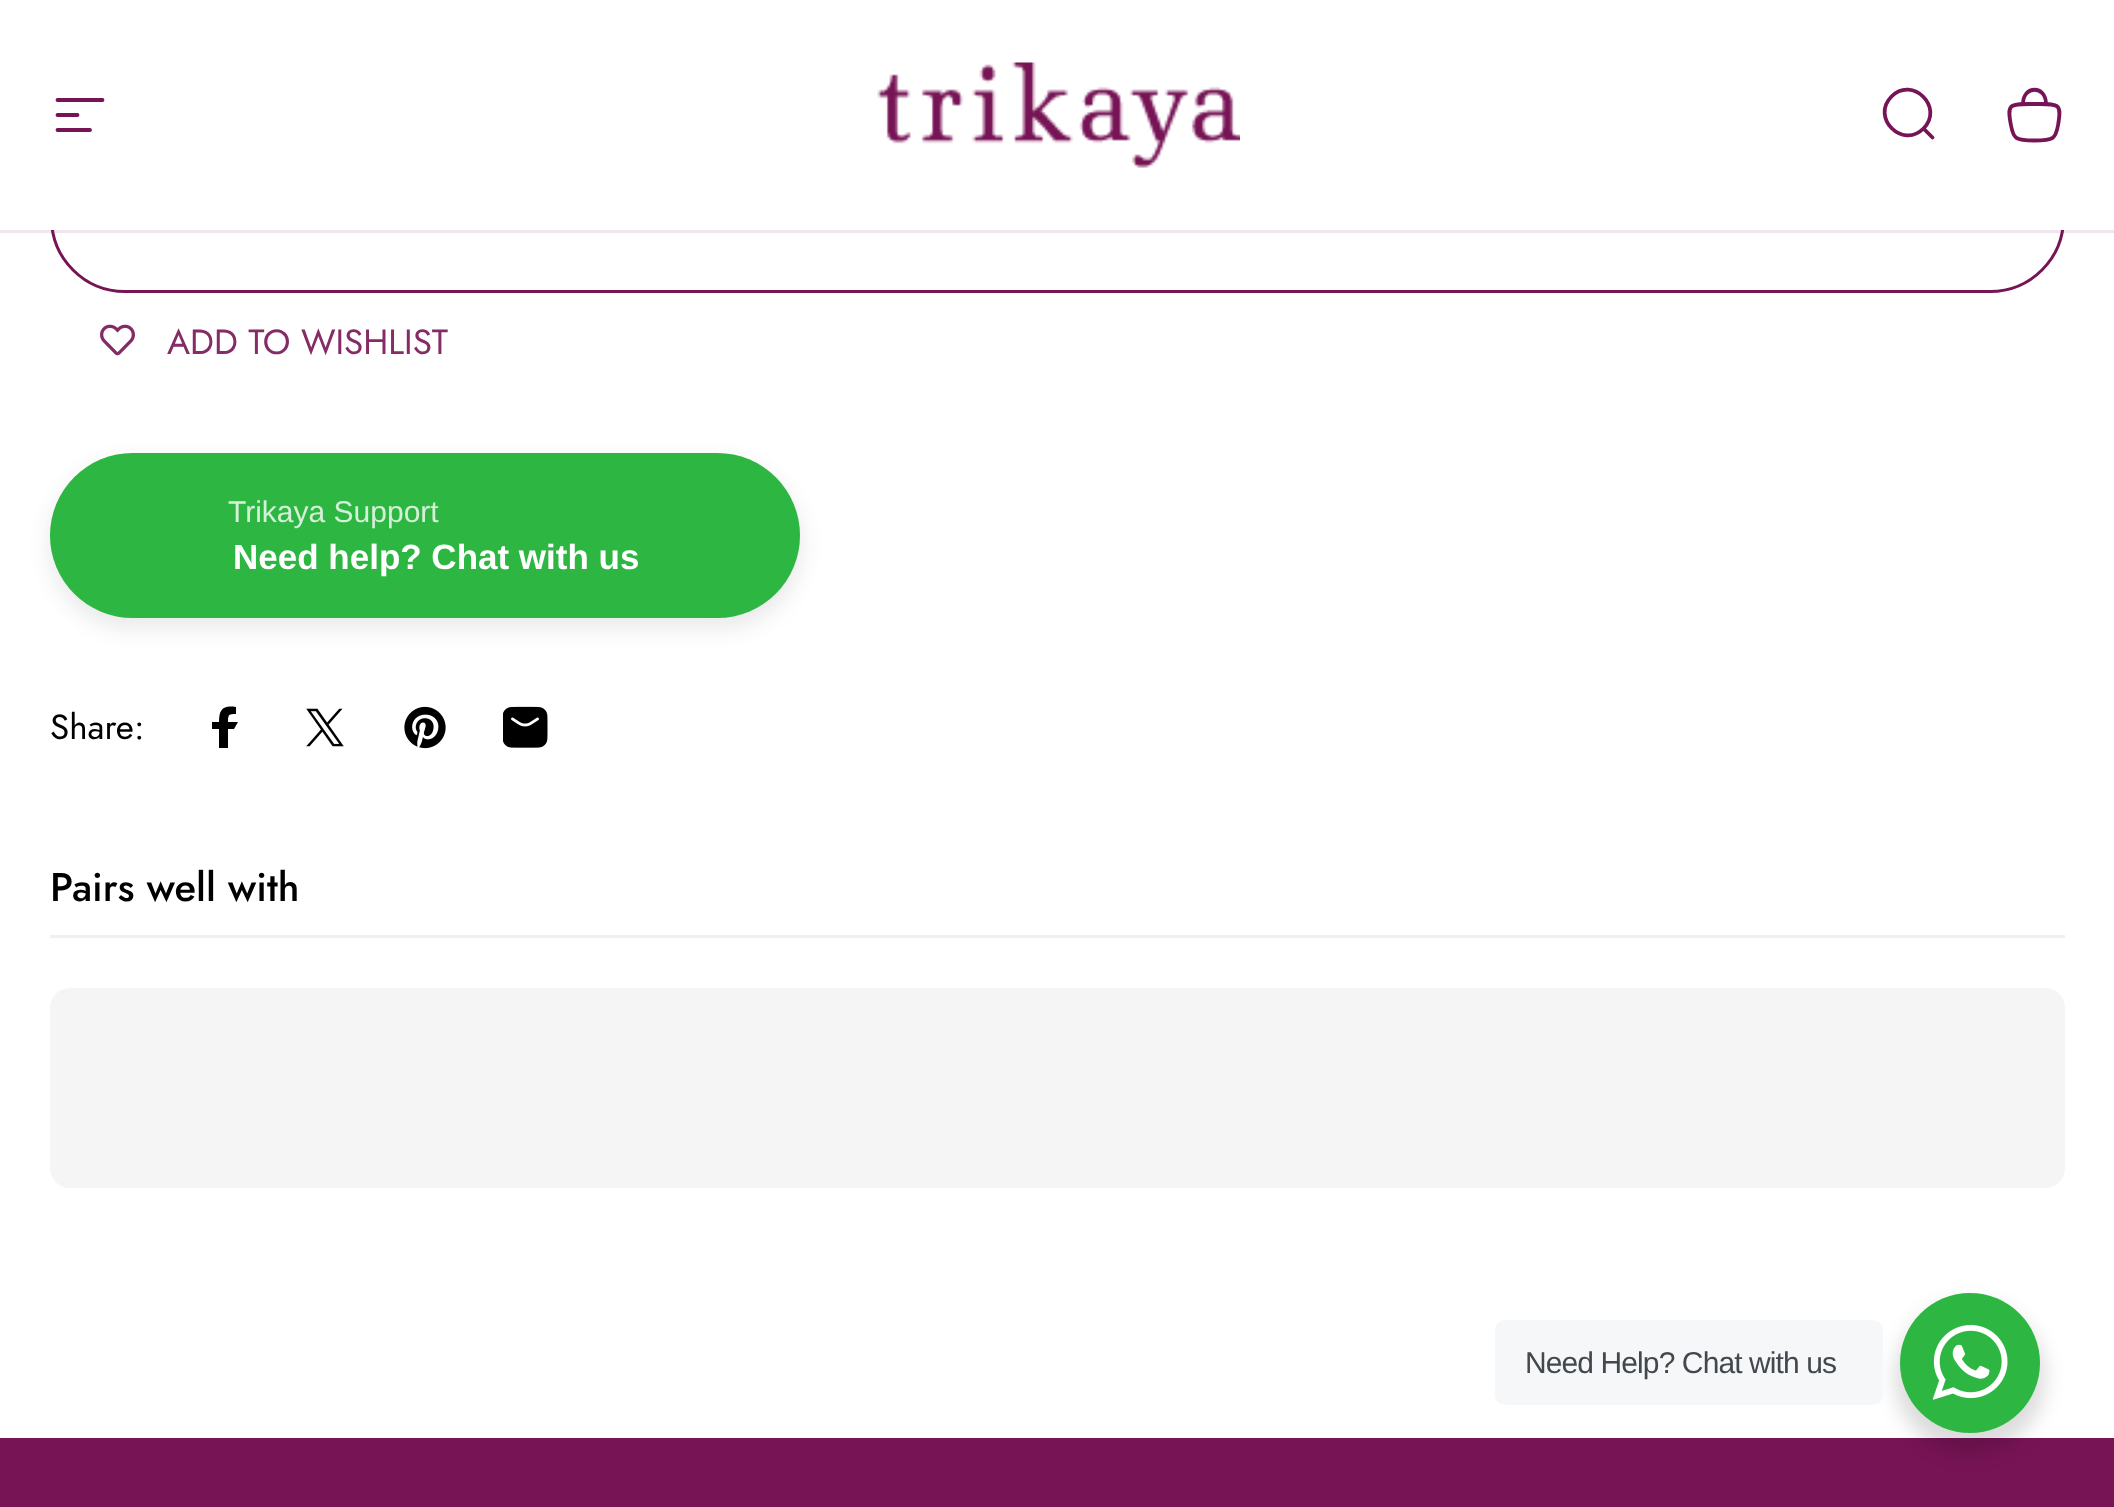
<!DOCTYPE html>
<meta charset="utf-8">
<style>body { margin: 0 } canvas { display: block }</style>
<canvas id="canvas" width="2114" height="1507"></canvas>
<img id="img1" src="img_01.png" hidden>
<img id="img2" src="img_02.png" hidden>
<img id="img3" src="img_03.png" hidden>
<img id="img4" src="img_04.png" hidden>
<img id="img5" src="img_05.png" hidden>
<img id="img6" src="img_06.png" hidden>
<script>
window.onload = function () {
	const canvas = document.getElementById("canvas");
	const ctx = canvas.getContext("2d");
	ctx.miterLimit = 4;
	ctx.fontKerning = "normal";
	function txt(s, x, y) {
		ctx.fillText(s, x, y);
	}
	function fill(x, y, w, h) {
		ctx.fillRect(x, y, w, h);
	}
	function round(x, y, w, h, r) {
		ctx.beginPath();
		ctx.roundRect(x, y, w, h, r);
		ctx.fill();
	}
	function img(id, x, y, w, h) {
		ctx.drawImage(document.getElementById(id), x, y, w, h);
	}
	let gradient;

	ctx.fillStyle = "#771455";
	fill(0, 0, 2114, 1507);
	ctx.fillStyle = "#FFFFFF";
	fill(0, 230, 2114, 1208);
	ctx.beginPath();
	ctx.roundRect(51.5, 144.5, 2012, 147, 73.5);
	ctx.strokeStyle = "#771455";
	ctx.lineWidth = 3;
	ctx.stroke();
	fill(0, 0, 2114, 230);
	ctx.beginPath();
	ctx.moveTo(57.5, 100);
	ctx.lineTo(102.5, 100);
	ctx.moveTo(57.5, 115);
	ctx.lineTo(77.5, 115);
	ctx.moveTo(57.5, 130);
	ctx.lineTo(90, 130);
	ctx.lineWidth = 3.8;
	ctx.lineCap = "round";
	ctx.stroke();
	img("img1", 877, 62, 363, 106);
	ctx.beginPath();
	ctx.moveTo(1932.5, 137.5);
	ctx.lineTo(1923.5, 128.5);
	ctx.moveTo(1923.5, 128.5);
	ctx.bezierCurveTo(1944.5, 107.5, 1912.5, 75.5, 1891.5, 96.5);
	ctx.bezierCurveTo(1870.5, 117.5, 1902.5, 149.5, 1923.5, 128.5);
	ctx.closePath();
	ctx.stroke();
	ctx.beginPath();
	ctx.moveTo(2023, 104);
	ctx.bezierCurveTo(2023, 85, 2046, 85, 2046, 104);
	ctx.moveTo(2034.5, 104);
	ctx.bezierCurveTo(2010, 104, 2006.5, 102.5, 2011, 125.5);
	ctx.bezierCurveTo(2013.5, 138.5, 2015, 140.5, 2034.5, 140.5);
	ctx.bezierCurveTo(2054, 140.5, 2055.5, 138.5, 2058, 125.5);
	ctx.bezierCurveTo(2062, 102.5, 2059, 104, 2034.5, 104);
	ctx.closePath();
	ctx.lineCap = "butt";
	ctx.stroke();
	ctx.fillStyle = "rgba(119, 20, 85, 0.11)";
	fill(0, 230, 2114, 3);
	img("img2", 100, 324, 35, 32);
	ctx.fillStyle = "rgba(32, 32, 37, 0.09)";
	ctx.filter = "blur(10px)";
	ctx.beginPath();
	ctx.roundRect(48, 460, 755, 170, 85);
	ctx.fill();
	ctx.filter = "none";
	ctx.fillStyle = "#2DB742";
	round(50, 453, 750, 165, 82.5);
	ctx.fillStyle = "#000000";
	ctx.beginPath();
	ctx.moveTo(219, 748);
	ctx.lineTo(219, 729);
	ctx.lineTo(212, 729);
	ctx.lineTo(212, 722);
	ctx.lineTo(219, 722);
	ctx.bezierCurveTo(219, 709, 223, 705, 236, 707);
	ctx.lineTo(236, 714);
	ctx.bezierCurveTo(229, 714, 228, 714, 228, 722);
	ctx.lineTo(238, 722);
	ctx.lineTo(234, 729);
	ctx.lineTo(228, 729);
	ctx.lineTo(228, 748);
	ctx.closePath();
	ctx.fill();
	img("img3", 306, 708, 38, 39);
	img("img4", 404, 706, 42, 43);
	img("img5", 503, 706, 45, 42);
	ctx.fillStyle = "#F0F0F0";
	fill(50, 935, 2015, 3);
	gradient = ctx.createLinearGradient(154, 395, 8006, 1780);
	gradient.addColorStop(0.4, "#F5F5F5");
	gradient.addColorStop(0.63, "#E3E3E3");
	gradient.addColorStop(0.79, "#F5F5F5");
	ctx.fillStyle = gradient;
	round(50, 988, 2015, 200, 20);
	ctx.fillStyle = "rgba(0, 0, 0, 0.14)";
	ctx.filter = "blur(10px)";
	ctx.beginPath();
	ctx.roundRect(1895, 1303, 150, 150, 75);
	ctx.fill();
	ctx.filter = "none";
	ctx.fillStyle = "#F5F7F9";
	round(1495, 1320, 388, 85, 10);
	ctx.fillStyle = "#2DB742";
	ctx.beginPath();
	ctx.arc(1970, 1363, 70, 0, Math.PI * 2);
	ctx.fill();
	img("img6", 1933, 1325, 75, 75);
	ctx.font = "35px Jost";
	ctx.fillStyle = "#852C66";
	txt("ADD TO WISHLIST", 167, 354);
	ctx.font = "30px Liberation Sans";
	ctx.fillStyle = "#D5F0D9";
	txt("Trikaya Support", 228, 522);
	ctx.font = "bold 35px Liberation Sans";
	ctx.fillStyle = "#FFFFFF";
	txt("Need help? Chat with us", 233, 569);
	ctx.font = "35px Jost";
	ctx.fillStyle = "#000000";
	txt("Share:", 50, 739);
	ctx.font = "500 40px Jost";
	txt("Pairs well with", 50, 901);
	ctx.letterSpacing = "-0.9px";
	ctx.font = "30px Liberation Sans";
	ctx.fillStyle = "#43474E";
	txt("Need Help? Chat with us", 1525, 1373);
};
</script>
